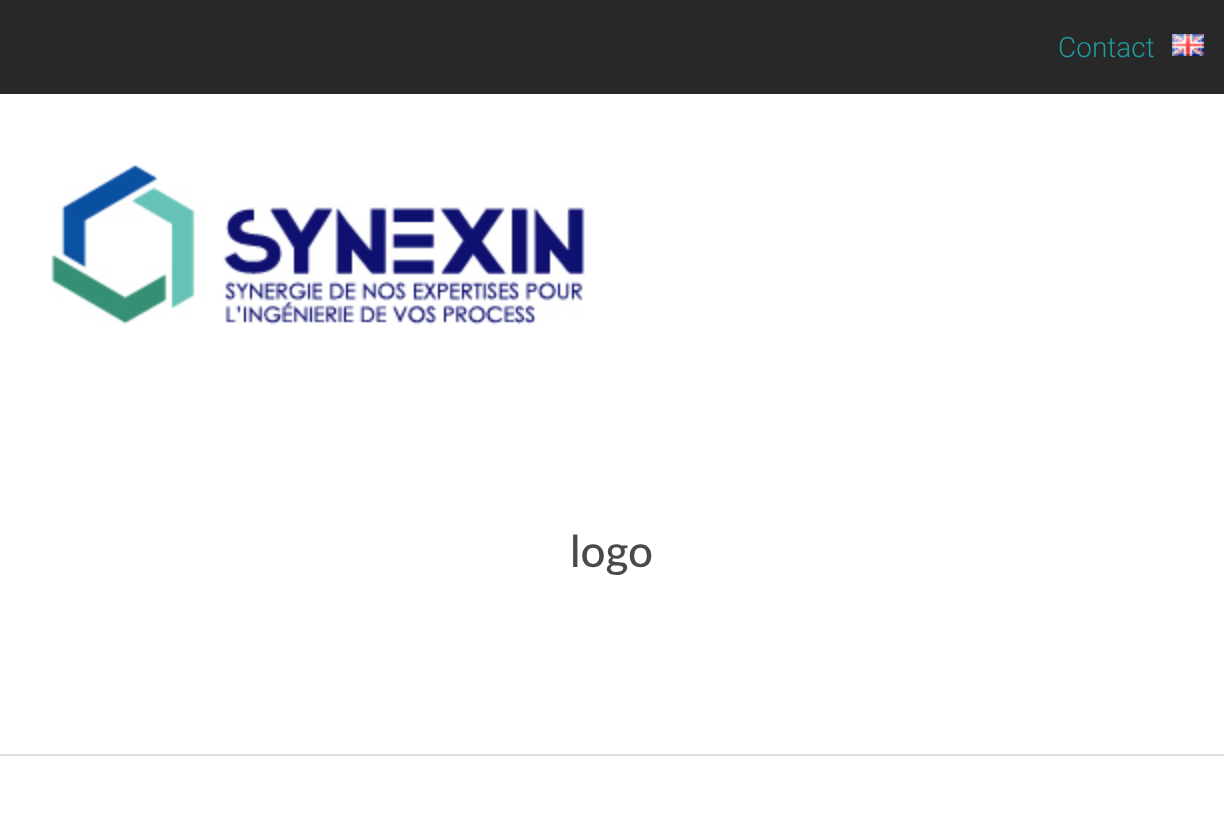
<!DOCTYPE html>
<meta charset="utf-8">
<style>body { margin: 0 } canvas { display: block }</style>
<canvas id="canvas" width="1224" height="832"></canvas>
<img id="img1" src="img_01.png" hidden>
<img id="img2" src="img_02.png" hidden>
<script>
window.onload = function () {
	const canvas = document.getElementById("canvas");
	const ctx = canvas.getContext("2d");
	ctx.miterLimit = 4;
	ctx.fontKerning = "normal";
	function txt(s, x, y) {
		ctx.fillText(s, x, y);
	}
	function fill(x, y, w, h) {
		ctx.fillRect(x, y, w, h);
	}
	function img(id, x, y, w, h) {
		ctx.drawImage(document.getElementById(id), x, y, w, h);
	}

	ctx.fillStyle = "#FFFFFF";
	fill(0, 0, 1224, 832);
	ctx.fillStyle = "#282828";
	fill(0, 0, 1224, 94);
	img("img1", 1172, 34, 32, 22);
	img("img2", 51, 165, 534, 160);
	ctx.fillStyle = "#DEDEDE";
	fill(0, 754, 1224, 2);
	ctx.font = "300 28px Roboto";
	ctx.fillStyle = "#209A9C";
	txt("Contact", 1058, 57);
	ctx.font = "500 44px Lato";
	ctx.fillStyle = "#4A4A4A";
	txt("logo", 570, 567);
};
</script>
